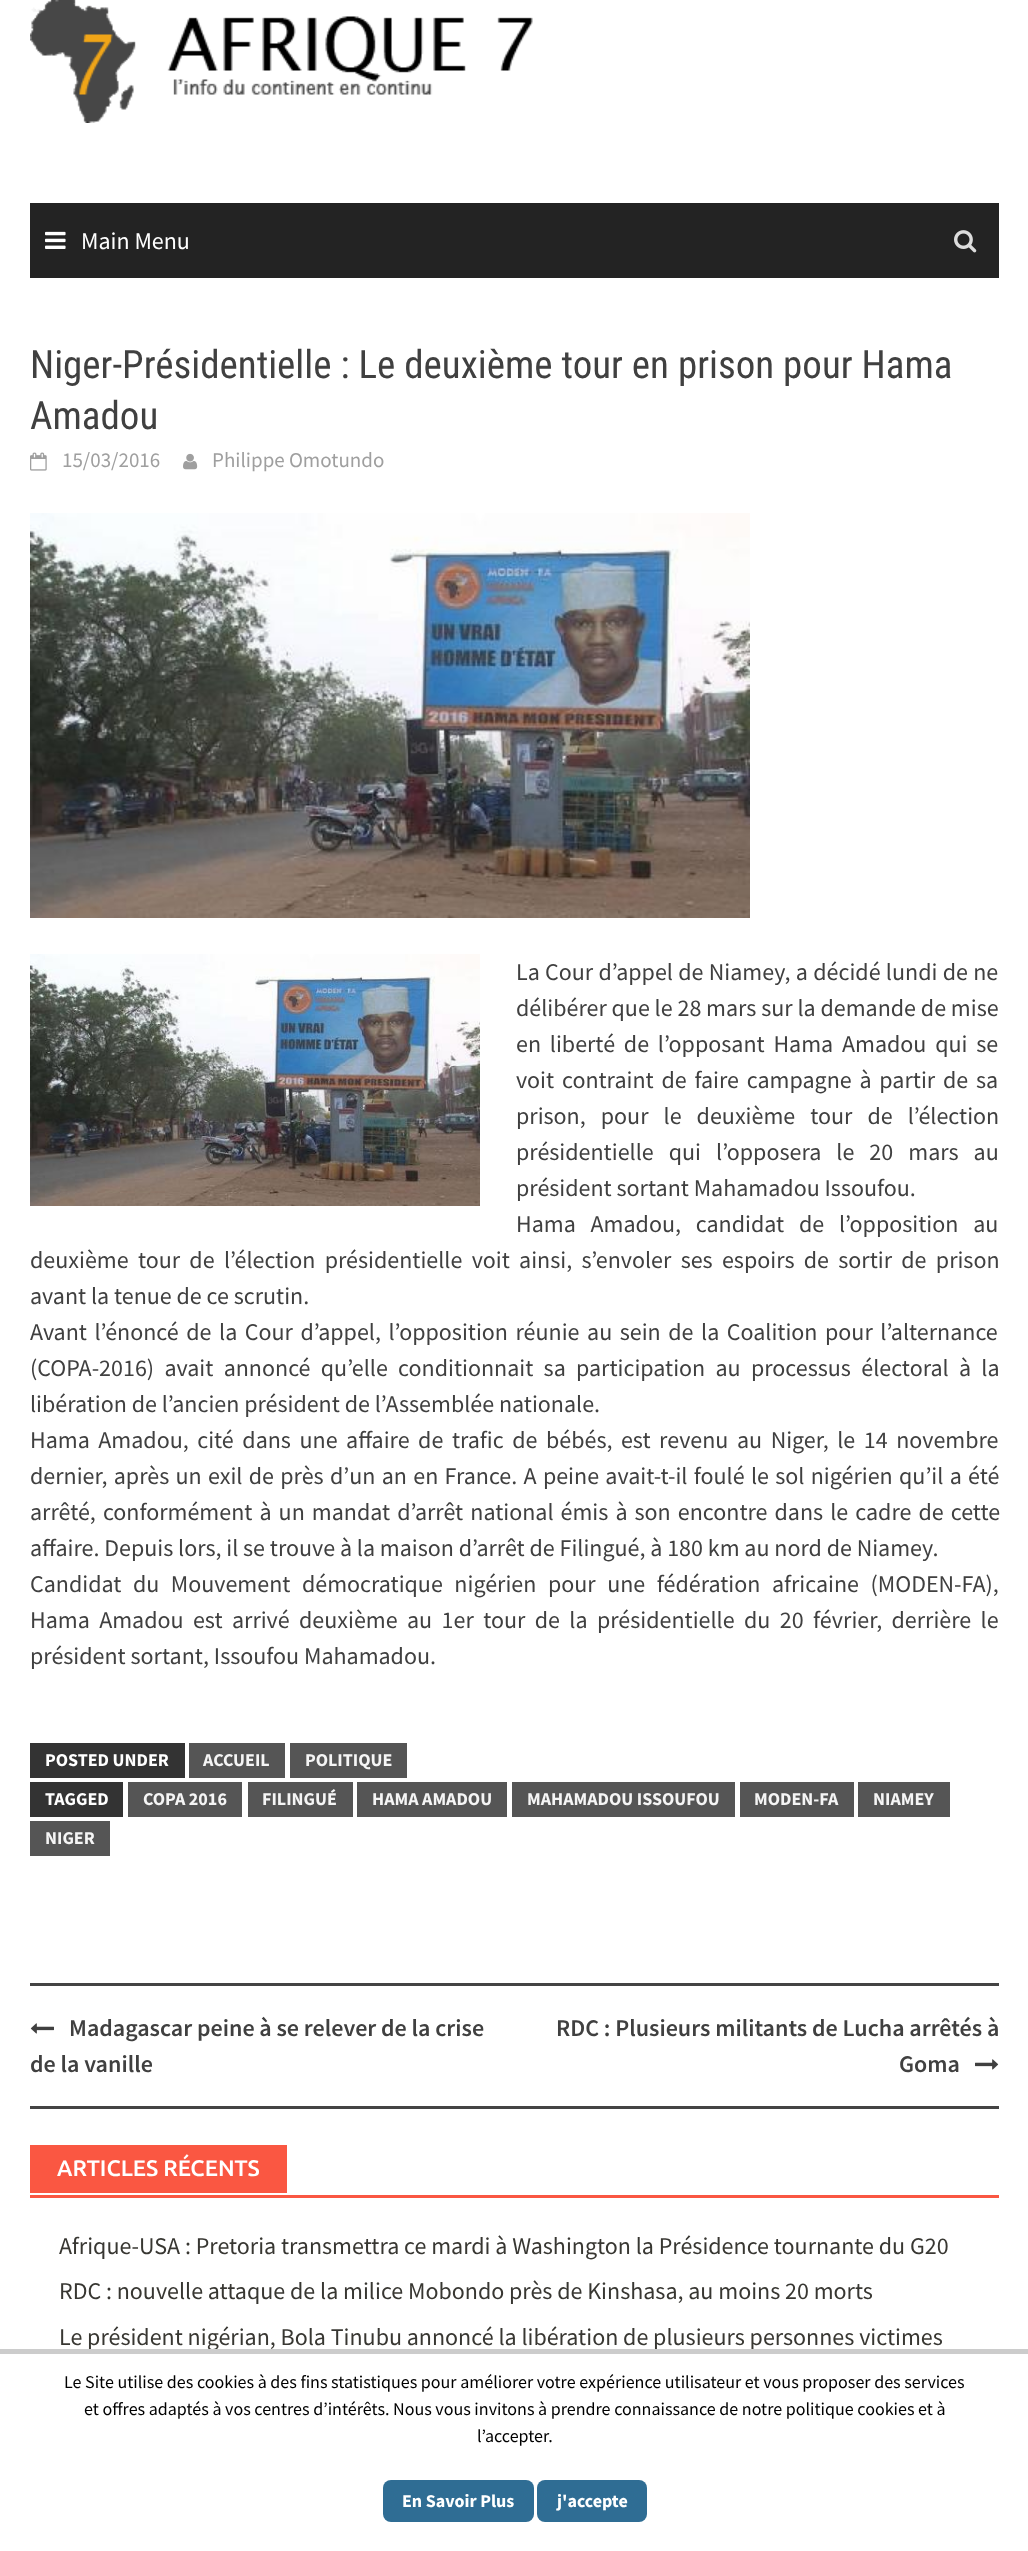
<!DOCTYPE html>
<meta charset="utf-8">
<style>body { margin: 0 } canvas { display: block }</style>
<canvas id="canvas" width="1028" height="2551"></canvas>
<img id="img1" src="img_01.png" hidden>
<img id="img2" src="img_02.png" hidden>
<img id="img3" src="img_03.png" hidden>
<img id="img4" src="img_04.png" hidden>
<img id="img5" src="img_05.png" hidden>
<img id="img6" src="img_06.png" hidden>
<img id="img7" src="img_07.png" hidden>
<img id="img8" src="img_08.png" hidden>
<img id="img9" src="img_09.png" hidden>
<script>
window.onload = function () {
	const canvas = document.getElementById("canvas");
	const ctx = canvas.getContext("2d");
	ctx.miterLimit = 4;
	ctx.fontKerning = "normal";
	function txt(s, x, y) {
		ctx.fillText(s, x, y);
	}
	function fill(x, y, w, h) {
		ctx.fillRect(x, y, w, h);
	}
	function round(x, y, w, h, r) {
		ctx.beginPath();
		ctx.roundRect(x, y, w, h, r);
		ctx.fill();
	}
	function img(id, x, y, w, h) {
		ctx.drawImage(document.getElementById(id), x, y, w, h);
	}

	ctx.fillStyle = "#FFFFFF";
	fill(0, 0, 1028, 2551);
	img("img1", 30, 0, 503, 123);
	ctx.fillStyle = "#232323";
	fill(30, 203, 969, 75);
	img("img2", 45, 231, 21, 18);
	img("img3", 954, 230, 23, 23);
	img("img4", 30, 452, 17, 19);
	img("img5", 183, 453, 15, 17);
	img("img6", 30, 513, 720, 405);
	img("img7", 30, 954, 450, 252);
	ctx.fillStyle = "#333333";
	fill(30, 1743, 155, 35);
	ctx.fillStyle = "#555555";
	fill(189, 1743, 96, 35);
	fill(290, 1743, 117, 35);
	ctx.fillStyle = "#333333";
	fill(30, 1782, 93, 35);
	ctx.fillStyle = "#555555";
	fill(128, 1782, 114, 35);
	fill(248, 1782, 105, 35);
	fill(357, 1782, 150, 35);
	fill(512, 1782, 223, 35);
	fill(740, 1782, 114, 35);
	fill(858, 1782, 92, 35);
	fill(30, 1821, 80, 35);
	ctx.fillStyle = "#444444";
	fill(30, 1983, 969, 3);
	fill(30, 2106, 969, 3);
	img("img8", 30, 2023, 24, 11);
	img("img9", 975, 2059, 24, 11);
	ctx.fillStyle = "#FA5742";
	fill(30, 2195, 969, 3);
	fill(30, 2145, 257, 48);
	ctx.fillStyle = "#2F6D94";
	round(383, 2480, 151, 42, 8);
	round(537, 2480, 110, 42, 8);
	ctx.font = "24px Source Sans Pro";
	ctx.fillStyle = "#FFFFFF";
	txt("Main Menu", 81, 249);
	ctx.font = "39px Roboto Condensed";
	ctx.fillStyle = "#404040";
	txt("Niger-Présidentielle : Le deuxième tour en prison pour Hama", 30, 378);
	txt("Amadou", 30, 429);
	ctx.font = "21px Source Sans Pro";
	ctx.fillStyle = "#9F9F9F";
	txt("15/03/2016", 62, 467);
	txt("Philippe Omotundo", 212, 467);
	ctx.wordSpacing = "0.5px";
	ctx.font = "24px Source Sans Pro";
	ctx.fillStyle = "#404040";
	txt("La Cour d’appel de Niamey, a décidé lundi de ne", 516, 980);
	ctx.wordSpacing = "0px";
	txt("délibérer que le 28 mars sur la demande de mise", 516, 1016);
	ctx.wordSpacing = "4px";
	txt("en liberté de l’opposant Hama Amadou qui se", 516, 1052);
	ctx.wordSpacing = "3px";
	txt("voit contraint de faire campagne à partir de sa", 516, 1088);
	ctx.wordSpacing = "10.25px";
	txt("prison, pour le deuxième tour de l’élection", 516, 1124);
	txt("présidentielle qui l’opposera le 20 mars au", 516, 1160);
	ctx.wordSpacing = "0px";
	txt("président sortant Mahamadou Issoufou.", 516, 1196);
	ctx.wordSpacing = "10px";
	txt("Hama Amadou, candidat de l’opposition au", 516, 1232);
	ctx.wordSpacing = "4.5px";
	txt("deuxième tour de l’élection présidentielle voit ainsi, s’envoler ses espoirs de sortir de prison", 30, 1268);
	ctx.wordSpacing = "0px";
	txt("avant la tenue de ce scrutin.", 30, 1304);
	ctx.wordSpacing = "2.75px";
	txt("Avant l’énoncé de la Cour d’appel, l’opposition réunie au sein de la Coalition pour l’alternance", 30, 1340);
	ctx.wordSpacing = "5.5px";
	txt("(COPA-2016) avait annoncé qu’elle conditionnait sa participation au processus électoral à la", 30, 1376);
	ctx.wordSpacing = "0px";
	txt("libération de l’ancien président de l’Assemblée nationale.", 30, 1412);
	ctx.wordSpacing = "3.75px";
	txt("Hama Amadou, cité dans une affaire de trafic de bébés, est revenu au Niger, le 14 novembre", 30, 1448);
	ctx.wordSpacing = "1.5px";
	txt("dernier, après un exil de près d’un an en France. A peine avait-t-il foulé le sol nigérien qu’il a été", 30, 1484);
	ctx.wordSpacing = "2.25px";
	txt("arrêté, conformément à un mandat d’arrêt national émis à son encontre dans le cadre de cette", 30, 1520);
	ctx.wordSpacing = "0px";
	txt("affaire. Depuis lors, il se trouve à la maison d’arrêt de Filingué, à 180 km au nord de Niamey.", 30, 1556);
	ctx.wordSpacing = "6.75px";
	txt("Candidat du Mouvement démocratique nigérien pour une fédération africaine (MODEN-FA),", 30, 1592);
	ctx.wordSpacing = "4.6px";
	txt("Hama Amadou est arrivé deuxième au 1er tour de la présidentielle du 20 février, derrière le", 30, 1628);
	ctx.wordSpacing = "0px";
	txt("président sortant, Issoufou Mahamadou.", 30, 1664);
	ctx.font = "bold 18px Source Sans Pro";
	ctx.fillStyle = "#FFFFFF";
	txt("POSTED UNDER", 45, 1766);
	ctx.fillStyle = "#F5F5F5";
	txt("ACCUEIL", 203, 1766);
	txt("POLITIQUE", 305, 1766);
	ctx.fillStyle = "#FFFFFF";
	txt("TAGGED", 45, 1805);
	ctx.fillStyle = "#F5F5F5";
	txt("COPA 2016", 143, 1805);
	txt("FILINGUÉ", 262, 1805);
	txt("HAMA AMADOU", 372, 1805);
	txt("MAHAMADOU ISSOUFOU", 527, 1805);
	txt("MODEN-FA", 754, 1805);
	txt("NIAMEY", 873, 1805);
	txt("NIGER", 45, 1844);
	ctx.font = "600 24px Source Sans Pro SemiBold";
	ctx.fillStyle = "#404040";
	txt("Madagascar peine à se relever de la crise", 69, 2036);
	txt("de la vanille", 30, 2072);
	txt("RDC : Plusieurs militants de Lucha arrêtés à", 556, 2036);
	txt("Goma", 899, 2072);
	ctx.font = "500 22.5px Ubuntu";
	ctx.fillStyle = "#FFFFFF";
	txt("ARTICLES RÉCENTS", 57, 2176);
	ctx.font = "24px Source Sans Pro";
	ctx.fillStyle = "#383732";
	txt("Afrique-USA : Pretoria transmettra ce mardi à Washington la Présidence tournante du G20", 59, 2254);
	txt("RDC : nouvelle attaque de la milice Mobondo près de Kinshasa, au moins 20 morts", 59, 2299);
	txt("Le président nigérian, Bola Tinubu annoncé la libération de plusieurs personnes victimes", 59, 2345);
	ctx.fillStyle = "#CCCCCC";
	fill(0, 2349, 1028, 5);
	ctx.font = "18px Source Sans Pro";
	ctx.fillStyle = "#000000";
	txt("Le Site utilise des cookies à des fins statistiques pour améliorer votre expérience utilisateur et vous proposer des services", 64, 2388);
	txt("et offres adaptés à vos centres d’intérêts. Nous vous invitons à prendre connaissance de notre politique cookies et à", 84, 2415);
	txt("l’accepter.", 477, 2442);
	ctx.font = "bold 18px Source Sans Pro";
	ctx.fillStyle = "#FFFFFF";
	txt("En Savoir Plus", 402, 2507);
	txt("j'accepte", 557, 2507);
};
</script>
